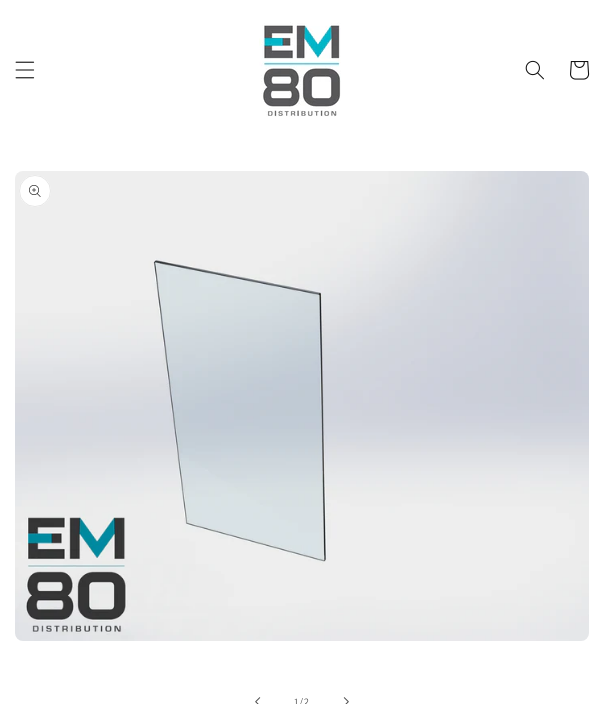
<!DOCTYPE html>
<meta charset="utf-8">
<style>body { margin: 0 } canvas { display: block }</style>
<canvas id="canvas" width="604" height="704"></canvas>
<img id="img1" src="img_01.png" hidden>
<img id="img2" src="img_02.png" hidden>
<img id="img3" src="img_03.png" hidden>
<img id="img4" src="img_04.png" hidden>
<img id="img5" src="img_05.png" hidden>
<img id="img6" src="img_06.png" hidden>
<img id="img7" src="img_07.png" hidden>
<img id="img8" src="img_08.png" hidden>
<script>
window.onload = function () {
	const canvas = document.getElementById("canvas");
	const ctx = canvas.getContext("2d");
	ctx.miterLimit = 4;
	ctx.fontKerning = "normal";
	function txt(s, x, y) {
		ctx.fillText(s, x, y);
	}
	function fill(x, y, w, h) {
		ctx.fillRect(x, y, w, h);
	}
	function img(id, x, y, w, h) {
		ctx.drawImage(document.getElementById(id), x, y, w, h);
	}

	ctx.fillStyle = "#FFFFFF";
	fill(0, 0, 604, 704);
	img("img1", 15, 61, 20, 18);
	img("img2", 259, 22, 82, 95);
	img("img3", 525, 60, 19, 20);
	img("img4", 570, 61, 20, 19);
	img("img5", 15, 171, 574, 470);
	ctx.beginPath();
	ctx.arc(35, 191, 16, 0, Math.PI * 2);
	ctx.fill();
	ctx.beginPath();
	ctx.arc(35, 191, 15.5, 0, Math.PI * 2);
	ctx.strokeStyle = "rgba(18, 18, 18, 0.1)";
	ctx.stroke();
	img("img6", 29, 185, 12, 12);
	img("img7", 255, 697, 6, 7);
	img("img8", 343, 697, 6, 7);
	ctx.letterSpacing = "1px";
	ctx.font = "10px Assistant";
	ctx.fillStyle = "#4D4D4D";
	txt("1/2", 294, 705);
};
</script>
